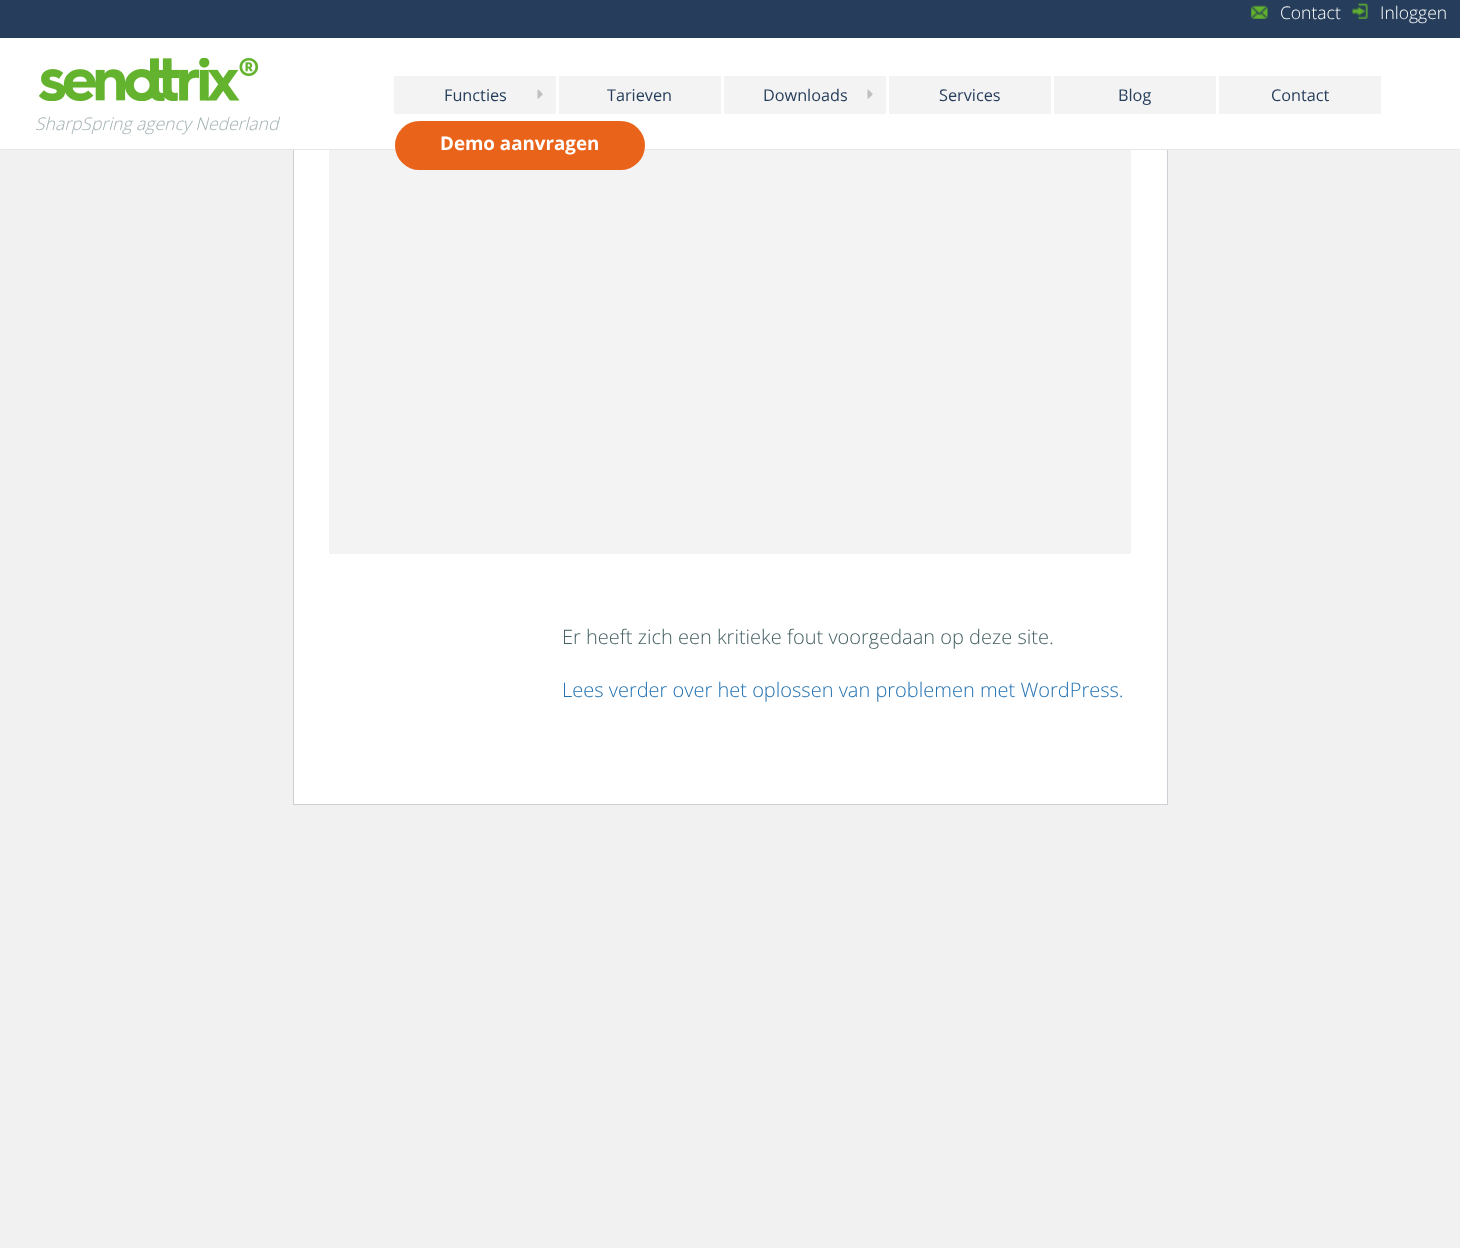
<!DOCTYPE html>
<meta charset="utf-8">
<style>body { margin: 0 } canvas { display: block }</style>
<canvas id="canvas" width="1460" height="1248"></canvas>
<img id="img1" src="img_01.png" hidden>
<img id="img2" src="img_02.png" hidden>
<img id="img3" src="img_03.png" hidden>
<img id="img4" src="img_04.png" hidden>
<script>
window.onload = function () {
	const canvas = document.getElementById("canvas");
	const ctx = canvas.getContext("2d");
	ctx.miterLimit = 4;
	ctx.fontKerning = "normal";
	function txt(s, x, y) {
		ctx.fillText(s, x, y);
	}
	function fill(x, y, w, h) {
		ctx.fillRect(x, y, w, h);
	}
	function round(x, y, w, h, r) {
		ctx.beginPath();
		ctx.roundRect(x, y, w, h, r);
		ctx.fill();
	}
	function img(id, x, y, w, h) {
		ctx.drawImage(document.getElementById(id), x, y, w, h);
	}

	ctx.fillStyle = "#F1F1F1";
	fill(0, 0, 1460, 1248);
	ctx.fillStyle = "#FFFFFF";
	fill(294, 150, 873, 654);
	ctx.strokeStyle = "#CCD0D4";
	ctx.strokeRect(293.5, 35.5, 874, 769);
	ctx.fillStyle = "#263E5B";
	fill(0, 0, 1460, 38);
	img("img1", 1251, 5, 17, 14);
	img("img2", 1352, 3, 16, 16);
	ctx.fillStyle = "#FFFFFF";
	fill(0, 38, 1460, 112);
	ctx.fillStyle = "#E3E7E8";
	ctx.beginPath();
	ctx.moveTo(1460, 150);
	ctx.lineTo(0, 150);
	ctx.lineTo(1, 149);
	ctx.lineTo(1459, 149);
	ctx.closePath();
	ctx.fill();
	img("img3", 39, 58, 219, 43);
	ctx.fillStyle = "#F3F3F3";
	fill(394, 76, 162, 38);
	img("img4", 537, 89, 6, 10);
	fill(559, 76, 162, 38);
	fill(724, 76, 162, 38);
	img("img4", 867, 89, 6, 10);
	fill(889, 76, 162, 38);
	fill(1054, 76, 162, 38);
	fill(1219, 76, 162, 38);
	fill(329, 150, 802, 404);
	ctx.fillStyle = "#EA631A";
	round(395, 121, 250, 49, 24.5);
	ctx.font = "300 17.5px Open Sans";
	ctx.fillStyle = "#FFFFFF";
	txt("Contact", 1280, 19);
	txt("Inloggen", 1380, 19);
	ctx.font = "italic 300 17.5px Open Sans";
	ctx.fillStyle = "#A2B0B2";
	txt("SharpSpring agency Nederland", 35, 130);
	ctx.font = "16.25px Open Sans";
	ctx.fillStyle = "#263E5B";
	txt("Functies", 444, 101);
	txt("Tarieven", 607, 101);
	txt("Downloads", 763, 101);
	txt("Services", 939, 101);
	txt("Blog", 1118, 101);
	txt("Contact", 1271, 101);
	ctx.font = "bold 18.75px Open Sans";
	ctx.fillStyle = "#FFFFFF";
	txt("Demo aanvragen", 440, 150);
	ctx.font = "300 20px Open Sans";
	ctx.fillStyle = "#456064";
	txt("Er heeft zich een kritieke fout voorgedaan op deze site.", 562, 644);
	ctx.fillStyle = "#2271B1";
	txt("Lees verder over het oplossen van problemen met WordPress.", 562, 697);
};
</script>
